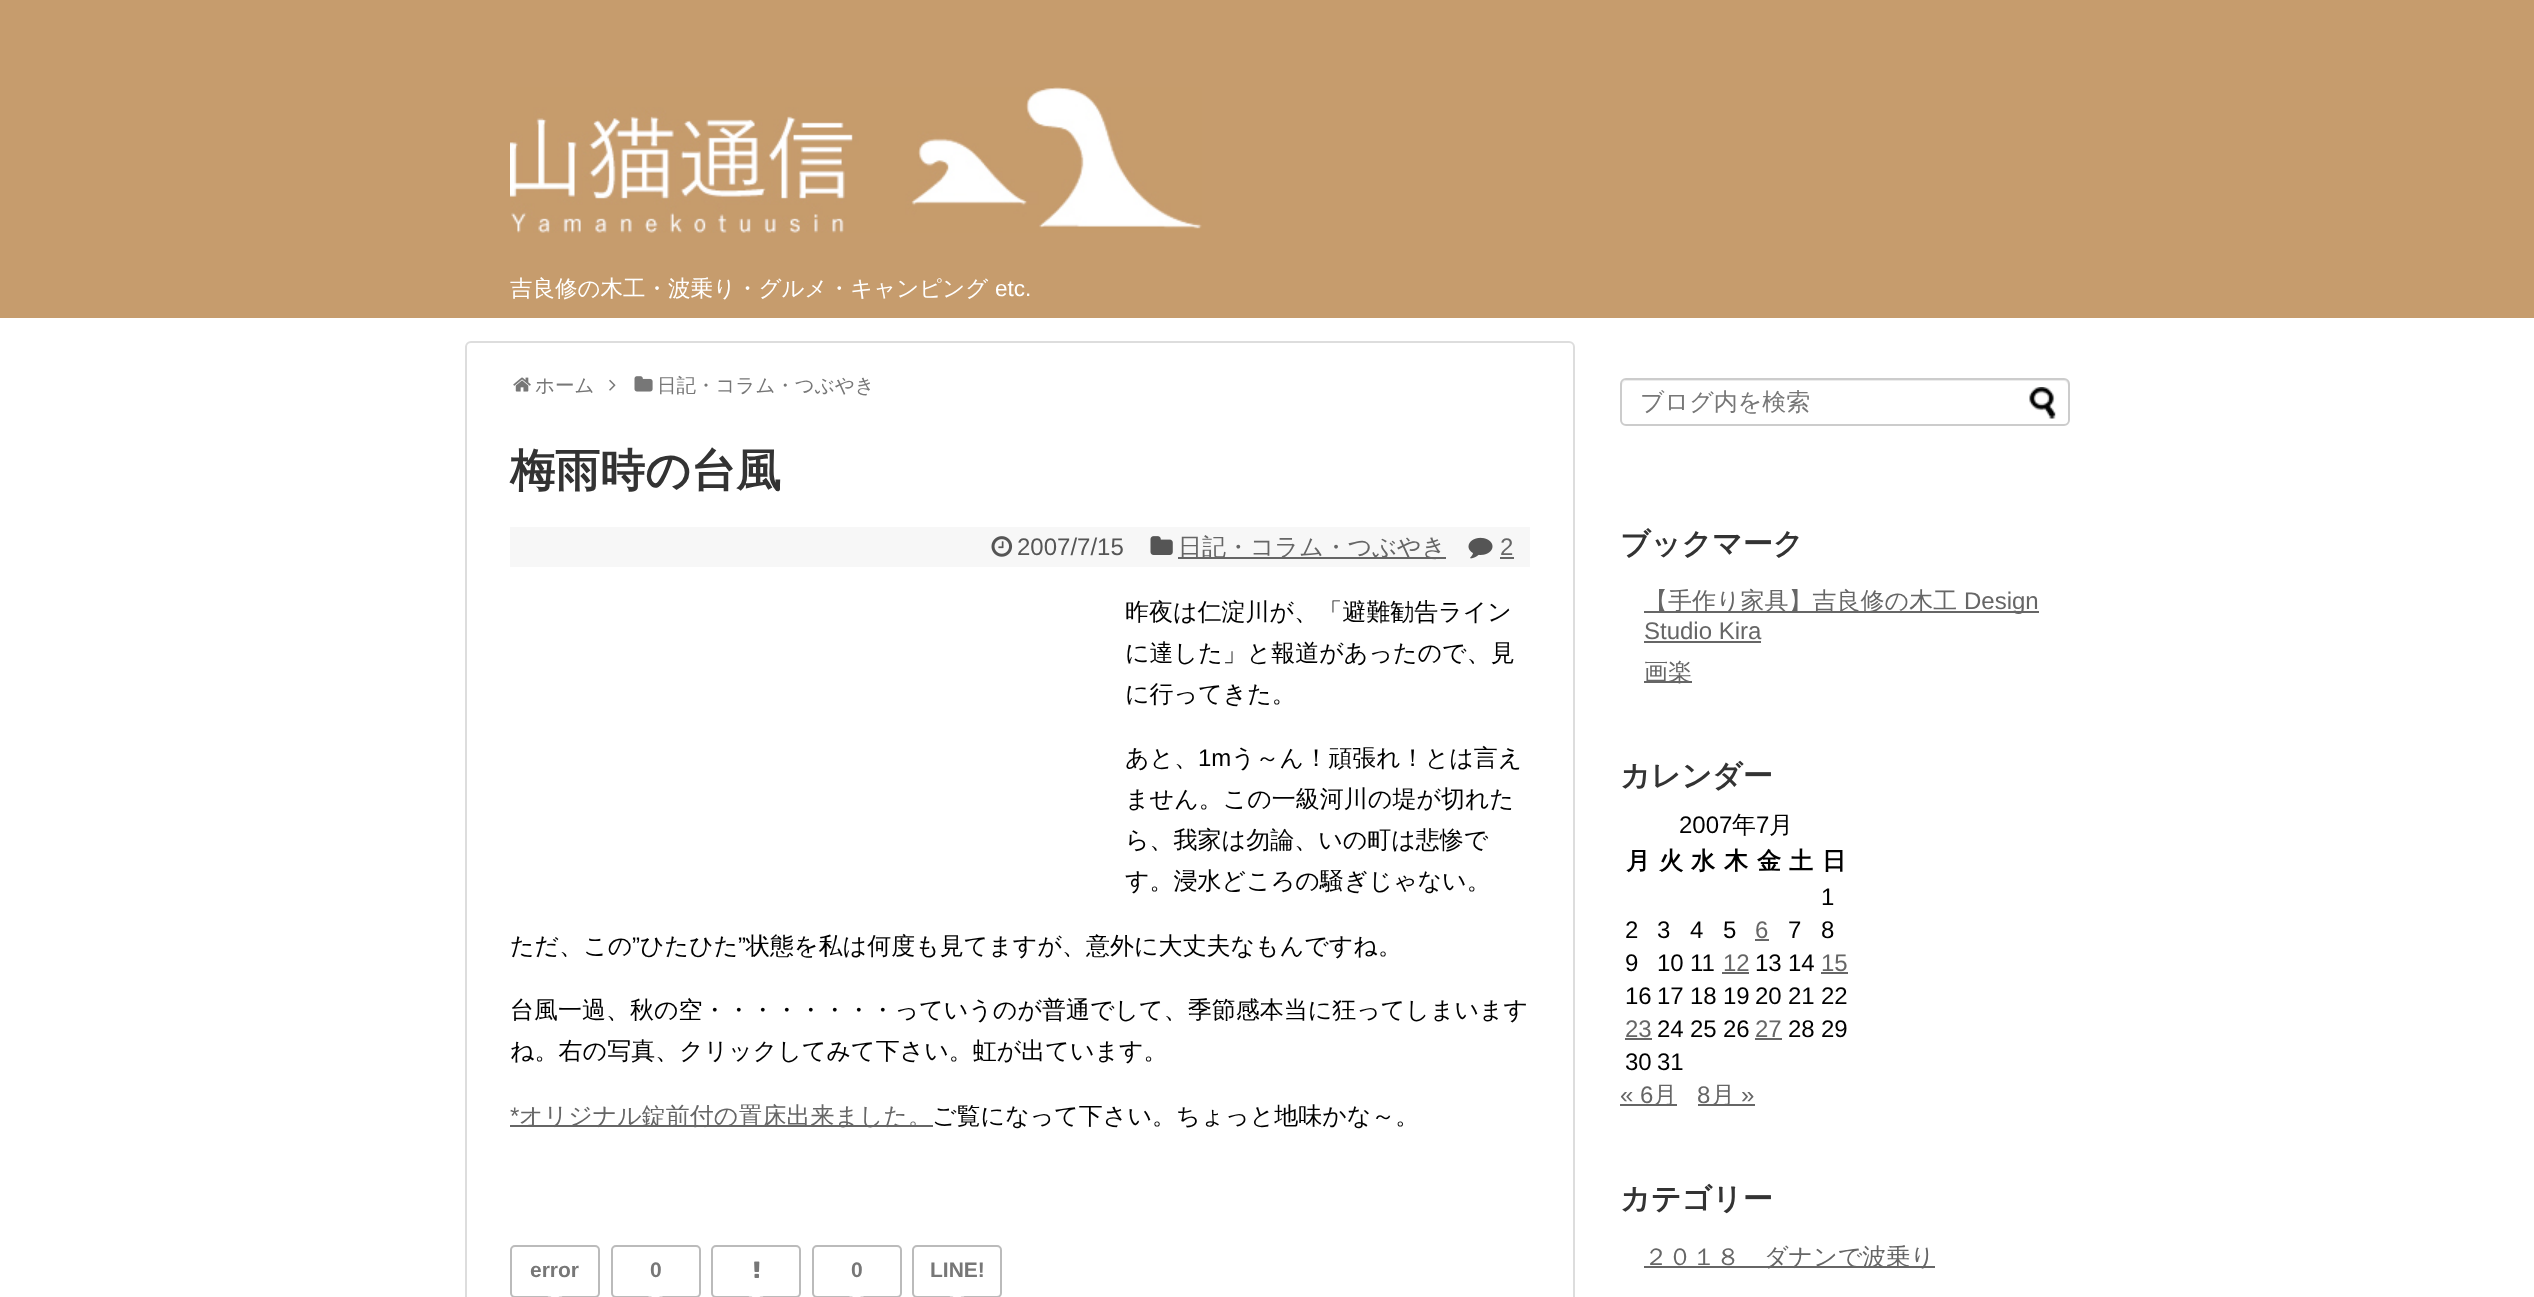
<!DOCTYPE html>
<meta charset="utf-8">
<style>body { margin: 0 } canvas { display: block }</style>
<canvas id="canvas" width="2534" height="1297"></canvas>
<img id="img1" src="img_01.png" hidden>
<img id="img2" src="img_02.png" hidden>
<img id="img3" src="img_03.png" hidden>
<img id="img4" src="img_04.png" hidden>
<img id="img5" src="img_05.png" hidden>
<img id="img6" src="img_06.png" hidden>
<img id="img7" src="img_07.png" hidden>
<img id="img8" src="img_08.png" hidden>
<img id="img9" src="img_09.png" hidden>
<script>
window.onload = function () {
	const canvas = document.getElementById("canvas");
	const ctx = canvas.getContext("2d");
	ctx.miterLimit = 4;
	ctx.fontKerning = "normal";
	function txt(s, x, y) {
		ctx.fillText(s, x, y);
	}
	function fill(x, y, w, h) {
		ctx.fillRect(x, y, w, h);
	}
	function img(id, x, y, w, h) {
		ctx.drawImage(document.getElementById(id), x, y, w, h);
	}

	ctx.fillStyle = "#FFFFFF";
	fill(0, 0, 2534, 1297);
	ctx.fillStyle = "#C69C6D";
	fill(0, 0, 2534, 318);
	img("img1", 510, 87, 692, 146);
	ctx.beginPath();
	ctx.roundRect(466, 342, 1108, 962, 5);
	ctx.strokeStyle = "#DDDDDD";
	ctx.lineWidth = 2;
	ctx.stroke();
	img("img2", 513, 377, 18, 15);
	img("img3", 609, 379, 7, 12);
	img("img4", 634, 376, 19, 16);
	ctx.fillStyle = "#F7F7F7";
	fill(510, 527, 1020, 40);
	img("img5", 991, 536, 22, 21);
	img("img6", 1150, 536, 23, 19);
	ctx.fillStyle = "#666666";
	fill(1178, 557, 268, 2);
	img("img7", 1468, 537, 25, 22);
	fill(1500, 557, 14, 2);
	fill(510, 1125, 423, 2);
	ctx.beginPath();
	ctx.roundRect(511, 1246, 88, 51, 4);
	ctx.strokeStyle = "#BBBBBB";
	ctx.stroke();
	ctx.fillStyle = "#DDDDDD";
	ctx.beginPath();
	ctx.moveTo(547.5, 1296);
	ctx.lineTo(562.5, 1296);
	ctx.lineTo(555, 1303.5);
	ctx.closePath();
	ctx.fill();
	ctx.fillStyle = "#FFFFFF";
	ctx.beginPath();
	ctx.moveTo(550.5, 1296);
	ctx.lineTo(559.5, 1296);
	ctx.lineTo(555, 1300.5);
	ctx.closePath();
	ctx.fill();
	ctx.beginPath();
	ctx.roundRect(612, 1246, 88, 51, 4);
	ctx.stroke();
	ctx.fillStyle = "#DDDDDD";
	ctx.beginPath();
	ctx.moveTo(648, 1296);
	ctx.lineTo(663, 1296);
	ctx.lineTo(655.5, 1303.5);
	ctx.closePath();
	ctx.fill();
	ctx.fillStyle = "#FFFFFF";
	ctx.beginPath();
	ctx.moveTo(651, 1296);
	ctx.lineTo(660, 1296);
	ctx.lineTo(655.5, 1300.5);
	ctx.closePath();
	ctx.fill();
	ctx.beginPath();
	ctx.roundRect(712, 1246, 88, 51, 4);
	ctx.stroke();
	img("img8", 754, 1261, 6, 17);
	ctx.fillStyle = "#DDDDDD";
	ctx.beginPath();
	ctx.moveTo(748.5, 1296);
	ctx.lineTo(763.5, 1296);
	ctx.lineTo(756, 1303.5);
	ctx.closePath();
	ctx.fill();
	ctx.fillStyle = "#FFFFFF";
	ctx.beginPath();
	ctx.moveTo(751.5, 1296);
	ctx.lineTo(760.5, 1296);
	ctx.lineTo(756, 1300.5);
	ctx.closePath();
	ctx.fill();
	ctx.beginPath();
	ctx.roundRect(813, 1246, 88, 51, 4);
	ctx.stroke();
	ctx.fillStyle = "#DDDDDD";
	ctx.beginPath();
	ctx.moveTo(849, 1296);
	ctx.lineTo(864, 1296);
	ctx.lineTo(856.5, 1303.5);
	ctx.closePath();
	ctx.fill();
	ctx.fillStyle = "#FFFFFF";
	ctx.beginPath();
	ctx.moveTo(852, 1296);
	ctx.lineTo(861, 1296);
	ctx.lineTo(856.5, 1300.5);
	ctx.closePath();
	ctx.fill();
	ctx.beginPath();
	ctx.roundRect(913, 1246, 88, 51, 4);
	ctx.stroke();
	ctx.fillStyle = "#DDDDDD";
	ctx.beginPath();
	ctx.moveTo(949.5, 1296);
	ctx.lineTo(964.5, 1296);
	ctx.lineTo(957, 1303.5);
	ctx.closePath();
	ctx.fill();
	ctx.fillStyle = "#FFFFFF";
	ctx.beginPath();
	ctx.moveTo(952.5, 1296);
	ctx.lineTo(961.5, 1296);
	ctx.lineTo(957, 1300.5);
	ctx.closePath();
	ctx.fill();
	ctx.fillStyle = "#ECECEC";
	ctx.beginPath();
	ctx.moveTo(1626, 381);
	ctx.lineTo(2064, 381);
	ctx.bezierCurveTo(2066, 381, 2068, 383, 2068, 386);
	ctx.lineTo(2068, 423);
	ctx.bezierCurveTo(2069, 422, 2069, 421, 2069, 420);
	ctx.lineTo(2069, 385);
	ctx.bezierCurveTo(2069, 382, 2067, 380, 2064, 380);
	ctx.lineTo(1627, 380);
	ctx.bezierCurveTo(1624, 380, 1622, 382, 1622, 385);
	ctx.lineTo(1622, 386);
	ctx.bezierCurveTo(1622, 383, 1624, 381, 1626, 381);
	ctx.closePath();
	ctx.fill();
	ctx.beginPath();
	ctx.roundRect(1621, 379, 448, 46, 5);
	ctx.strokeStyle = "#CCCCCC";
	ctx.stroke();
	img("img9", 2029, 387, 27, 32);
	ctx.fillStyle = "#666666";
	fill(1644, 611, 395, 2);
	fill(1644, 641, 117, 2);
	fill(1644, 681, 48, 2);
	fill(1755, 939, 14, 2);
	fill(1722, 972, 27, 2);
	fill(1821, 972, 27, 2);
	fill(1625, 1038, 27, 2);
	fill(1755, 1038, 27, 2);
	fill(1620, 1104, 57, 2);
	fill(1698, 1104, 57, 2);
	fill(1644, 1266, 291, 2);
	ctx.font = "500 22.5px WenQuanYi Zen Hei";
	ctx.fillStyle = "#FFFFFF";
	txt("吉良修の木工・波乗り・グルメ・キャンピング", 510, 296);
	ctx.font = "22.5px Liberation Sans";
	txt("etc.", 995, 296);
	ctx.font = "500 19.5px WenQuanYi Zen Hei";
	ctx.fillStyle = "#777777";
	txt("ホーム", 535, 392);
	txt("日記・コラム・つぶやき", 657, 392);
	ctx.font = "bold 45px WenQuanYi Zen Hei";
	ctx.fillStyle = "#333333";
	txt("梅雨時の台風", 510, 486);
	ctx.font = "24px Liberation Sans";
	ctx.fillStyle = "#555555";
	txt("2007/7/15", 1017, 555);
	ctx.font = "500 24px WenQuanYi Zen Hei";
	ctx.fillStyle = "#666666";
	txt("日記・コラム・つぶやき", 1178, 555);
	ctx.font = "24px Liberation Sans";
	txt("2", 1500, 555);
	ctx.font = "500 24px WenQuanYi Zen Hei";
	ctx.fillStyle = "#000000";
	txt("昨夜は仁淀川が、「避難勧告ライン", 1125, 620);
	txt("に達した」と報道があったので、見", 1125, 661);
	txt("に行ってきた。", 1125, 702);
	txt("あと、", 1125, 766);
	ctx.font = "24px Liberation Sans";
	txt("1m", 1198, 766);
	ctx.font = "500 24px WenQuanYi Zen Hei";
	txt("う～ん！頑張れ！とは言え", 1231, 766);
	txt("ません。この一級河川の堤が切れた", 1125, 807);
	txt("ら、我家は勿論、いの町は悲惨で", 1125, 848);
	txt("す。浸水どころの騒ぎじゃない。", 1125, 889);
	txt("ただ、この", 510, 954);
	ctx.font = "24px Liberation Sans";
	txt("”", 632, 954);
	ctx.font = "500 24px WenQuanYi Zen Hei";
	txt("ひたひた", 640, 954);
	ctx.font = "24px Liberation Sans";
	txt("”", 738, 954);
	ctx.font = "500 24px WenQuanYi Zen Hei";
	txt("状態を私は何度も見てますが、意外に大丈夫なもんですね。", 746, 954);
	txt("台風一過、秋の空・・・・・・・・っていうのが普通でして、季節感本当に狂ってしまいます", 510, 1018);
	txt("ね。右の写真、クリックしてみて下さい。虹が出ています。", 510, 1059);
	ctx.font = "24px Liberation Sans";
	ctx.fillStyle = "#666666";
	txt("*", 510, 1124);
	ctx.font = "500 24px WenQuanYi Zen Hei";
	txt("オリジナル錠前付の置床出来ました。", 519, 1124);
	ctx.fillStyle = "#000000";
	txt("ご覧になって下さい。ちょっと地味かな～。", 932, 1124);
	ctx.font = "bold 21px Liberation Sans";
	ctx.fillStyle = "#777777";
	txt("error", 530, 1277);
	txt("0", 650, 1277);
	txt("0", 851, 1277);
	txt("LINE!", 930, 1277);
	ctx.font = "500 24px WenQuanYi Zen Hei";
	txt("ブログ内を検索", 1640, 410);
	ctx.font = "bold 30px WenQuanYi Zen Hei";
	ctx.fillStyle = "#333333";
	txt("ブックマーク", 1620, 554);
	ctx.font = "500 24px WenQuanYi Zen Hei";
	ctx.fillStyle = "#666666";
	txt("【手作り家具】吉良修の木工", 1644, 609);
	ctx.font = "24px Liberation Sans";
	txt("Design", 1964, 609);
	txt("Studio Kira", 1644, 639);
	ctx.font = "500 24px WenQuanYi Zen Hei";
	txt("画楽", 1644, 680);
	ctx.font = "bold 30px WenQuanYi Zen Hei";
	ctx.fillStyle = "#333333";
	txt("カレンダー", 1620, 786);
	ctx.font = "24px Liberation Sans";
	ctx.fillStyle = "#000000";
	txt("2007", 1679, 833);
	ctx.font = "500 24px WenQuanYi Zen Hei";
	txt("年", 1732, 833);
	ctx.font = "24px Liberation Sans";
	txt("7", 1756, 833);
	ctx.font = "500 24px WenQuanYi Zen Hei";
	txt("月", 1769, 833);
	ctx.font = "bold 24px WenQuanYi Zen Hei";
	txt("月", 1626, 869);
	txt("火", 1659, 869);
	txt("水", 1691, 869);
	txt("木", 1724, 869);
	txt("金", 1757, 869);
	txt("土", 1789, 869);
	txt("日", 1822, 869);
	ctx.font = "24px Liberation Sans";
	txt("1", 1821, 905);
	txt("2", 1625, 938);
	txt("3", 1657, 938);
	txt("4", 1690, 938);
	txt("5", 1723, 938);
	ctx.fillStyle = "#666666";
	txt("6", 1755, 938);
	ctx.fillStyle = "#000000";
	txt("7", 1788, 938);
	txt("8", 1821, 938);
	txt("9", 1625, 971);
	txt("10", 1657, 971);
	txt("11", 1690, 971);
	ctx.fillStyle = "#666666";
	txt("12", 1723, 971);
	ctx.fillStyle = "#000000";
	txt("13", 1755, 971);
	txt("14", 1788, 971);
	ctx.fillStyle = "#666666";
	txt("15", 1821, 971);
	ctx.fillStyle = "#000000";
	txt("16", 1625, 1004);
	txt("17", 1657, 1004);
	txt("18", 1690, 1004);
	txt("19", 1723, 1004);
	txt("20", 1755, 1004);
	txt("21", 1788, 1004);
	txt("22", 1821, 1004);
	ctx.fillStyle = "#666666";
	txt("23", 1625, 1037);
	ctx.fillStyle = "#000000";
	txt("24", 1657, 1037);
	txt("25", 1690, 1037);
	txt("26", 1723, 1037);
	ctx.fillStyle = "#666666";
	txt("27", 1755, 1037);
	ctx.fillStyle = "#000000";
	txt("28", 1788, 1037);
	txt("29", 1821, 1037);
	txt("30", 1625, 1070);
	txt("31", 1657, 1070);
	ctx.fillStyle = "#666666";
	txt("« 6", 1620, 1103);
	ctx.font = "500 24px WenQuanYi Zen Hei";
	txt("月", 1653, 1103);
	ctx.font = "24px Liberation Sans";
	txt("8", 1697, 1103);
	ctx.font = "500 24px WenQuanYi Zen Hei";
	txt("月", 1711, 1103);
	ctx.font = "24px Liberation Sans";
	txt("»", 1741, 1103);
	ctx.font = "bold 30px WenQuanYi Zen Hei";
	ctx.fillStyle = "#333333";
	txt("カテゴリー", 1620, 1209);
	ctx.font = "500 24px WenQuanYi Zen Hei";
	ctx.fillStyle = "#666666";
	txt("２０１８　ダナンで波乗り", 1644, 1265);
};
</script>
